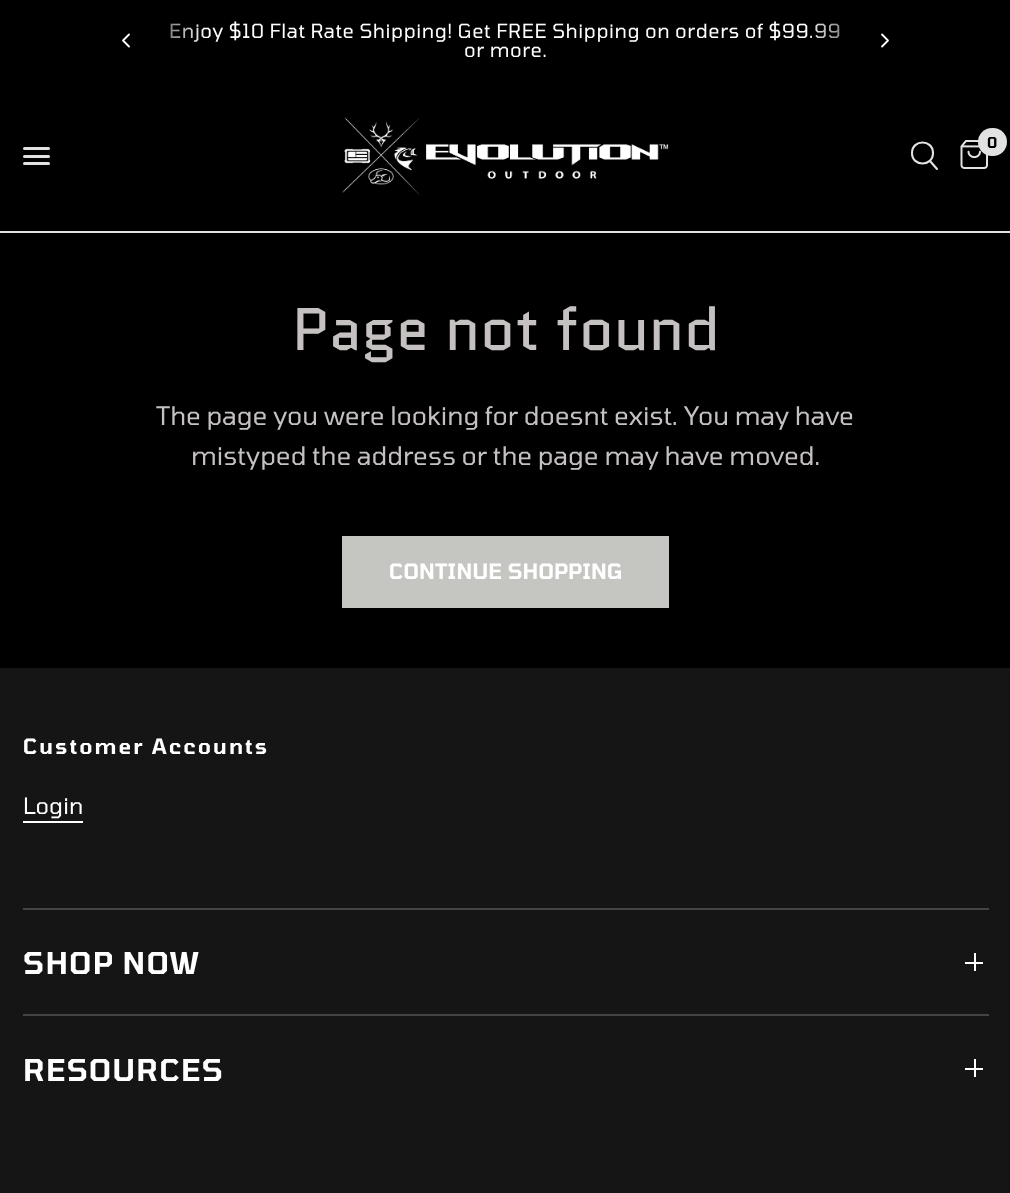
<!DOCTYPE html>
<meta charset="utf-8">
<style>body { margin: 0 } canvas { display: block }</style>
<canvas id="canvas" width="1010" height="1193"></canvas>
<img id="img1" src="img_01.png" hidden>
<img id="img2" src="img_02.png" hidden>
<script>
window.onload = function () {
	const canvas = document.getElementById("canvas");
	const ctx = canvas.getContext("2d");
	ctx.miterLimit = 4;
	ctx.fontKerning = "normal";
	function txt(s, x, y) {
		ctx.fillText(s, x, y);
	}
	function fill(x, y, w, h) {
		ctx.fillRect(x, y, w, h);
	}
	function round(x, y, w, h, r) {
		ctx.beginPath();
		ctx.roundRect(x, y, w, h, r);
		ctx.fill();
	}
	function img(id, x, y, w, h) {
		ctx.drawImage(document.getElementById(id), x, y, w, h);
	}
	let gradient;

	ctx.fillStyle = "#000000";
	fill(0, 0, 1010, 1193);
	ctx.beginPath();
	ctx.moveTo(129, 34.5);
	ctx.lineTo(123, 40.5);
	ctx.lineTo(129, 46.5);
	ctx.strokeStyle = "#FFFFFF";
	ctx.lineWidth = 1.8;
	ctx.lineCap = "round";
	ctx.lineJoin = "round";
	ctx.stroke();
	ctx.beginPath();
	ctx.moveTo(882, 34.5);
	ctx.lineTo(888, 40.5);
	ctx.lineTo(882, 46.5);
	ctx.stroke();
	ctx.fillStyle = "#E2E2E2";
	fill(0, 231, 1010, 2);
	img("img1", 342, 117, 327, 78);
	ctx.beginPath();
	ctx.moveTo(930, 161);
	ctx.lineTo(937, 169);
	ctx.moveTo(933, 153);
	ctx.bezierCurveTo(933, 167, 912, 167, 912, 153);
	ctx.bezierCurveTo(912, 139, 933, 139, 933, 153);
	ctx.closePath();
	ctx.strokeStyle = "#E2E2E2";
	ctx.lineWidth = 2.1;
	ctx.stroke();
	img("img2", 960, 140, 28, 29);
	round(978, 128, 29, 28, 14);
	round(23, 147, 27, 3, 1.5);
	round(23, 155, 27, 3, 1.5);
	round(23, 162, 27, 3, 1.5);
	ctx.fillStyle = "#C5C5C1";
	fill(342, 536, 327, 72);
	ctx.fillStyle = "#151515";
	fill(0, 668, 1010, 525);
	ctx.fillStyle = "#FFFFFF";
	fill(23, 821, 60, 2);
	ctx.fillStyle = "#444444";
	fill(23, 908, 966, 2);
	ctx.fillStyle = "#FFFFFF";
	fill(974, 953, 2, 18);
	fill(965, 962, 18, 2);
	ctx.fillStyle = "#444444";
	fill(23, 1014, 966, 2);
	ctx.fillStyle = "#FFFFFF";
	fill(974, 1059, 2, 18);
	fill(965, 1068, 18, 2);
	ctx.letterSpacing = "0.58px";
	ctx.font = "19.5px Tomorrow";
	txt("Enjoy $10 Flat Rate Shipping! Get FREE Shipping on orders of $99.99", 169, 38);
	txt("or more.", 464, 57);
	gradient = ctx.createLinearGradient(206, 41, 131, 41);
	gradient.addColorStop(0, "rgba(0, 0, 0, 0)");
	gradient.addColorStop(1, "#000000");
	ctx.fillStyle = gradient;
	fill(170, 23, 34, 19);
	gradient = ctx.createLinearGradient(806, 41, 881, 41);
	gradient.addColorStop(0, "rgba(0, 0, 0, 0)");
	gradient.addColorStop(1, "#000000");
	ctx.fillStyle = gradient;
	fill(810, 23, 30, 15);
	ctx.letterSpacing = "0px";
	ctx.font = "600 15px Tomorrow";
	ctx.fillStyle = "#000000";
	txt("0", 987, 148);
	ctx.font = "60px Quantico";
	ctx.fillStyle = "#C5C1C1";
	txt("Page not found", 292, 350);
	ctx.font = "25.5px Tomorrow";
	txt("The page you were looking for doesnt exist. You may have", 156, 425);
	txt("mistyped the address or the page may have moved.", 191, 465);
	ctx.letterSpacing = "0.25px";
	ctx.font = "600 21px Tomorrow";
	ctx.fillStyle = "#FFFFFF";
	txt("CONTINUE SHOPPING", 389, 579);
	ctx.letterSpacing = "2.1px";
	txt("Customer Accounts", 23, 754);
	ctx.letterSpacing = "0.25px";
	ctx.font = "22.5px Tomorrow";
	txt("Login", 23, 814);
	ctx.letterSpacing = "1.5px";
	ctx.font = "600 30px Tomorrow";
	txt("SHOP NOW", 23, 974);
	txt("RESOURCES", 23, 1081);
};
</script>
